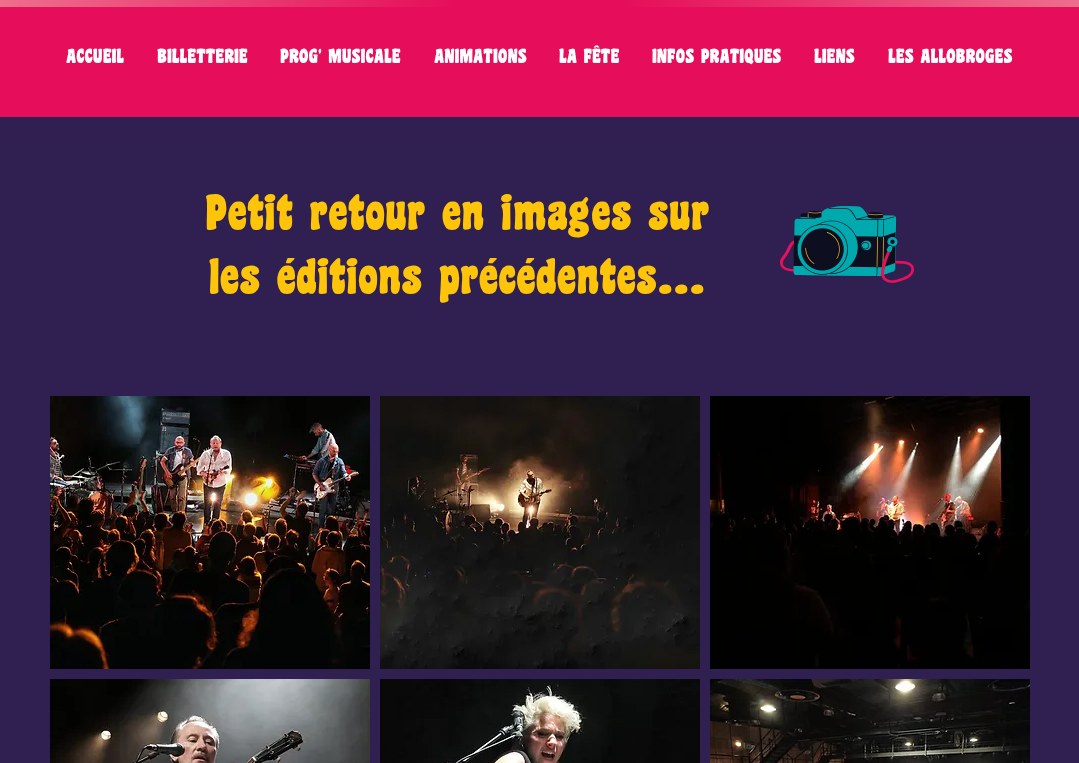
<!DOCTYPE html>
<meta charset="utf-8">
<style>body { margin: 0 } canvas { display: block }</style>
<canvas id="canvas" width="1079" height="763"></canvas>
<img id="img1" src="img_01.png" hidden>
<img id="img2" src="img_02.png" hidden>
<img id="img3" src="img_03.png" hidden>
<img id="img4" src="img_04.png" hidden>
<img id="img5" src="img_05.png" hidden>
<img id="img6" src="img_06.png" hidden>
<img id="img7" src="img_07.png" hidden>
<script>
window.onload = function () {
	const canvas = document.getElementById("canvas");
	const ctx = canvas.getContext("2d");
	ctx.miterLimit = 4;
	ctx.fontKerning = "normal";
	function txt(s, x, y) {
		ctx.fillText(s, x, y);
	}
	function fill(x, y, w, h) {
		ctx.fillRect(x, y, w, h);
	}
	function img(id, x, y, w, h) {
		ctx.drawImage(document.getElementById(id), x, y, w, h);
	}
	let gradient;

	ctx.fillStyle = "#302051";
	fill(0, 0, 1079, 763);
	ctx.fillStyle = "#E60D5A";
	fill(0, 7, 1079, 110);
	gradient = ctx.createRadialGradient(540, 3.5, 0, 540, 3.5, 540);
	gradient.addColorStop(0.15, "#E60D5A");
	gradient.addColorStop(1, "#ED6F8C");
	ctx.fillStyle = gradient;
	fill(0, 0, 1079, 7);
	img("img1", 780, 206, 134, 77);
	img("img2", 50, 396, 320, 273);
	img("img3", 380, 396, 320, 273);
	img("img4", 710, 396, 320, 273);
	img("img5", 50, 679, 320, 84);
	img("img6", 380, 679, 320, 84);
	img("img7", 710, 679, 320, 84);
	ctx.font = "900 18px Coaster";
	ctx.fillStyle = "#FFFFFF";
	txt("ACCUEIL", 66, 63);
	txt("BILLETTERIE", 157, 63);
	txt("PROG' MUSICALE", 280, 63);
	txt("ANIMATIONS", 434, 63);
	txt("LA FÊTE", 559, 63);
	txt("INFOS PRATIQUES", 652, 63);
	txt("LIENS", 814, 63);
	txt("LES ALLOBROGES", 888, 63);
	ctx.font = "900 45px Coaster";
	ctx.fillStyle = "#FDC40A";
	txt("Petit retour en images sur", 205, 230);
	txt("les éditions précédentes...", 209, 294);
};
</script>
